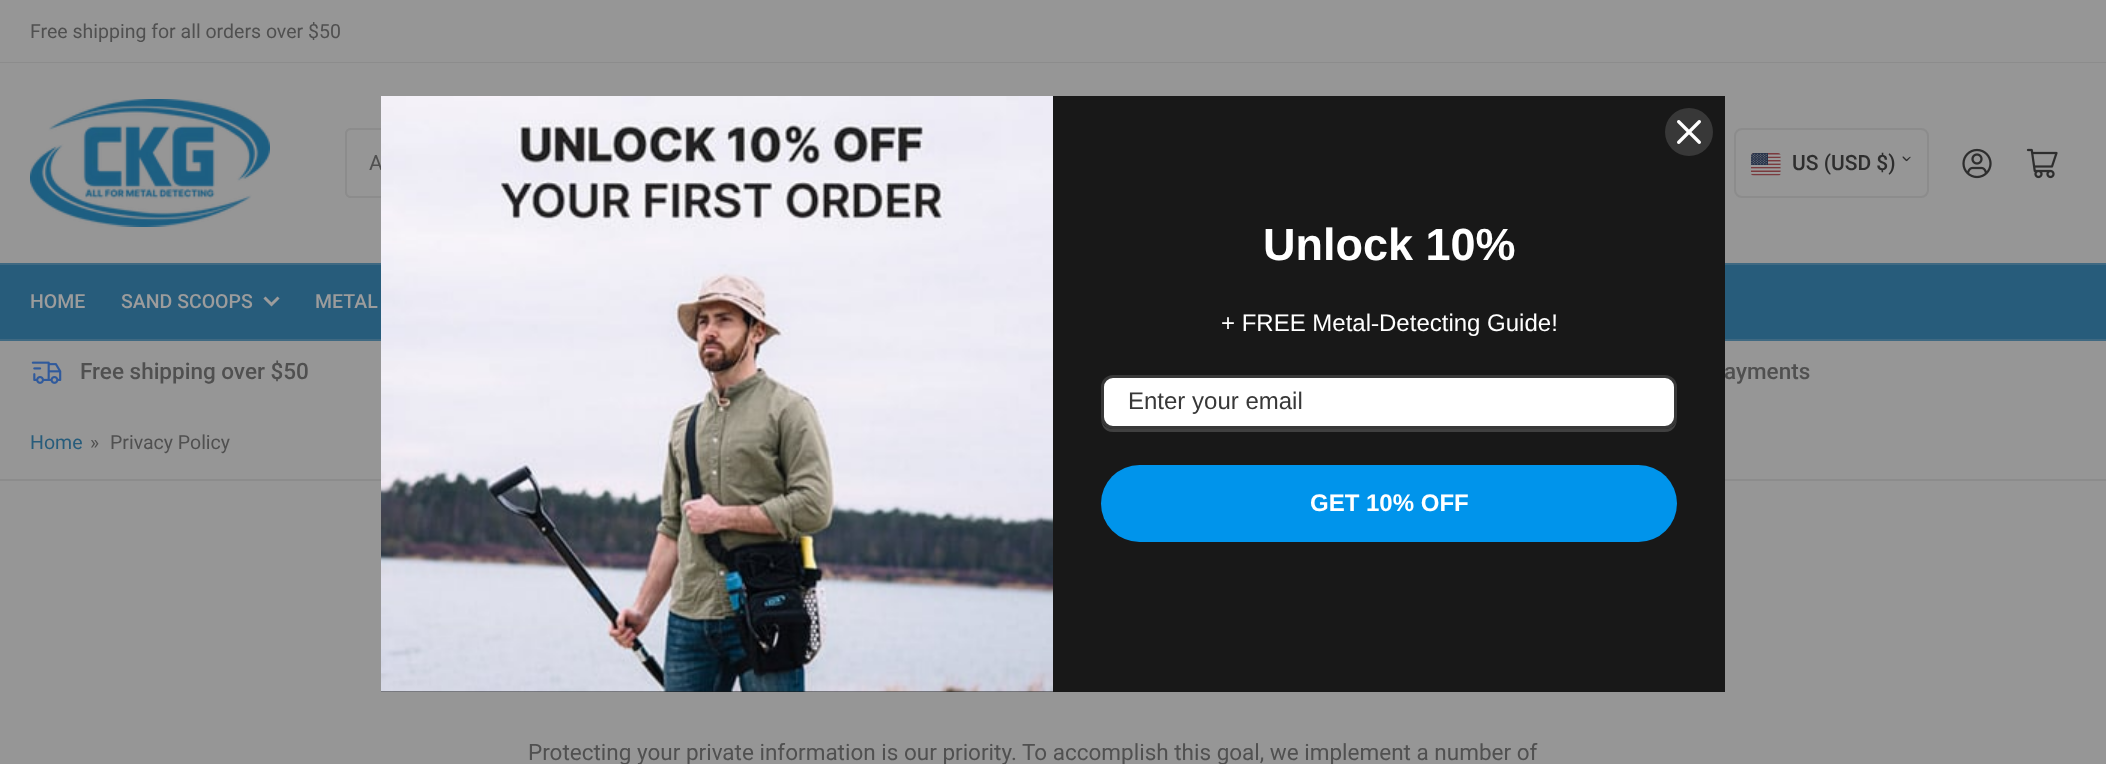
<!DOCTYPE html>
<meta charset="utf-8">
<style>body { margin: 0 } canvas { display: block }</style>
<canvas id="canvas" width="2106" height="764"></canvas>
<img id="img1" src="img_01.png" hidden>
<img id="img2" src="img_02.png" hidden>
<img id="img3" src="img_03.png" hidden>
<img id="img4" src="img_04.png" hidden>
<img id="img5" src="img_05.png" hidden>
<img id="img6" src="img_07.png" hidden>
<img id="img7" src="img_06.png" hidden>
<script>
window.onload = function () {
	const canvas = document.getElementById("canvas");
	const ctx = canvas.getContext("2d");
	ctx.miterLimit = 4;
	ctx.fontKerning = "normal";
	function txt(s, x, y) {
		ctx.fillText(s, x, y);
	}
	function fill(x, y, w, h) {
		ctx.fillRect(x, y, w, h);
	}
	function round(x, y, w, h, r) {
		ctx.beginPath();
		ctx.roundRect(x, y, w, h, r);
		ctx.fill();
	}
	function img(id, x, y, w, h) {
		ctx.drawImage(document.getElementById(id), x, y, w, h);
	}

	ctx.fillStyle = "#969696";
	fill(0, 0, 2106, 764);
	ctx.fillStyle = "#8C8C8C";
	fill(0, 62, 2106, 1);
	img("img1", 30, 99, 240, 128);
	ctx.beginPath();
	ctx.roundRect(346, 129, 178, 68, 5);
	ctx.strokeStyle = "#8C8C8C";
	ctx.lineWidth = 2;
	ctx.stroke();
	ctx.fillStyle = "#969696";
	ctx.beginPath();
	ctx.roundRect(346, 129, 178, 68, [5, 0, 0, 5]);
	ctx.fill();
	ctx.stroke();
	ctx.beginPath();
	ctx.roundRect(1735, 129, 193, 68, 7);
	ctx.stroke();
	img("img2", 1751, 153, 30, 23);
	ctx.fillStyle = "#2E2E2E";
	ctx.beginPath();
	ctx.moveTo(1903.5, 156.5);
	ctx.lineTo(1906.5, 159.5);
	ctx.bezierCurveTo(1907, 160.5, 1907, 161.5, 1906, 161);
	ctx.lineTo(1903.5, 158.5);
	ctx.bezierCurveTo(1903.5, 158.5, 1902.5, 157.5, 1902.5, 157);
	ctx.bezierCurveTo(1902.5, 156.5, 1903, 156.5, 1903.5, 156.5);
	ctx.closePath();
	ctx.fill();
	ctx.beginPath();
	ctx.moveTo(1906, 160);
	ctx.lineTo(1909, 157.5);
	ctx.bezierCurveTo(1910, 156.5, 1911, 156.5, 1910.5, 157.5);
	ctx.lineTo(1908, 160);
	ctx.bezierCurveTo(1908, 160, 1907, 161.5, 1906.5, 161);
	ctx.bezierCurveTo(1906, 161, 1906, 160.5, 1906, 160);
	ctx.closePath();
	ctx.fill();
	img("img3", 1962, 148, 30, 31);
	img("img4", 2026, 148, 32, 31);
	ctx.fillStyle = "#275C7B";
	fill(0, 265, 2106, 74);
	ctx.fillStyle = "#3F6982";
	fill(0, 263, 2106, 2);
	fill(0, 339, 2106, 2);
	ctx.beginPath();
	ctx.moveTo(277.5, 298.5);
	ctx.lineTo(271.5, 304.5);
	ctx.lineTo(265.5, 298.5);
	ctx.strokeStyle = "#9C9C9C";
	ctx.lineWidth = 3;
	ctx.lineCap = "square";
	ctx.stroke();
	ctx.fillStyle = "#8C8C8C";
	fill(0, 479, 2106, 2);
	ctx.fillStyle = "#181818";
	fill(1053, 96, 672, 596);
	ctx.fillStyle = "#383838";
	ctx.beginPath();
	ctx.arc(1689, 132, 24, 0, Math.PI * 2);
	ctx.fill();
	img("img5", 1677, 120, 24, 24);
	ctx.fillStyle = "#181818";
	fill(381, 691, 672, 1);
	ctx.fillStyle = "#404040";
	ctx.beginPath();
	ctx.moveTo(1101, 417);
	ctx.bezierCurveTo(1101, 425, 1104, 432, 1113, 432);
	ctx.lineTo(1665, 432);
	ctx.bezierCurveTo(1674, 432, 1677, 425, 1677, 417);
	ctx.bezierCurveTo(1677, 424, 1672, 429, 1665, 429);
	ctx.lineTo(1113, 429);
	ctx.bezierCurveTo(1106, 429, 1101, 424, 1101, 417);
	ctx.closePath();
	ctx.fill();
	ctx.fillStyle = "#FFFFFF";
	ctx.beginPath();
	ctx.roundRect(1102.5, 376.5, 573, 51, 10.5);
	ctx.fill();
	ctx.strokeStyle = "#383838";
	ctx.stroke();
	ctx.fillStyle = "#0094EB";
	round(1101, 465, 576, 77, 38.5);
	img("img6", 31, 361, 31, 23);
	ctx.font = "19.5px Roboto";
	ctx.fillStyle = "#505050";
	txt("Free shipping for all orders over $50", 30, 38);
	ctx.font = "21px Roboto";
	txt("A", 369, 170);
	ctx.font = "500 21px Roboto";
	ctx.fillStyle = "#2E2E2E";
	txt("US (USD $)", 1792, 170);
	ctx.font = "500 19.5px Roboto";
	ctx.fillStyle = "#9C9C9C";
	txt("HOME", 30, 308);
	txt("SAND SCOOPS", 121, 308);
	txt("METAL", 315, 308);
	img("img7", 381, 96, 672, 596);
	ctx.font = "bold 45px Liberation Sans";
	ctx.fillStyle = "#FFFFFF";
	txt("Unlock 10%", 1263, 260);
	ctx.font = "24px Liberation Sans";
	txt("+ FREE Metal‑Detecting Guide!", 1221, 331);
	ctx.fillStyle = "#383838";
	txt("Enter your email", 1128, 409);
	ctx.font = "bold 24px Liberation Sans";
	ctx.fillStyle = "#FFFFFF";
	txt("GET 10% OFF", 1310, 511);
	ctx.font = "500 22.5px Roboto";
	ctx.fillStyle = "#505050";
	txt("Free shipping over $50", 80, 379);
	txt("ayments", 1724, 379);
	ctx.font = "19.5px Roboto";
	ctx.fillStyle = "#275C7B";
	txt("Home", 30, 449);
	ctx.fillStyle = "#505050";
	txt("»", 90, 449);
	txt("Privacy Policy", 110, 449);
	ctx.font = "22.5px Roboto";
	txt("Protecting your private information is our priority. To accomplish this goal, we implement a number of", 528, 760);
};
</script>
